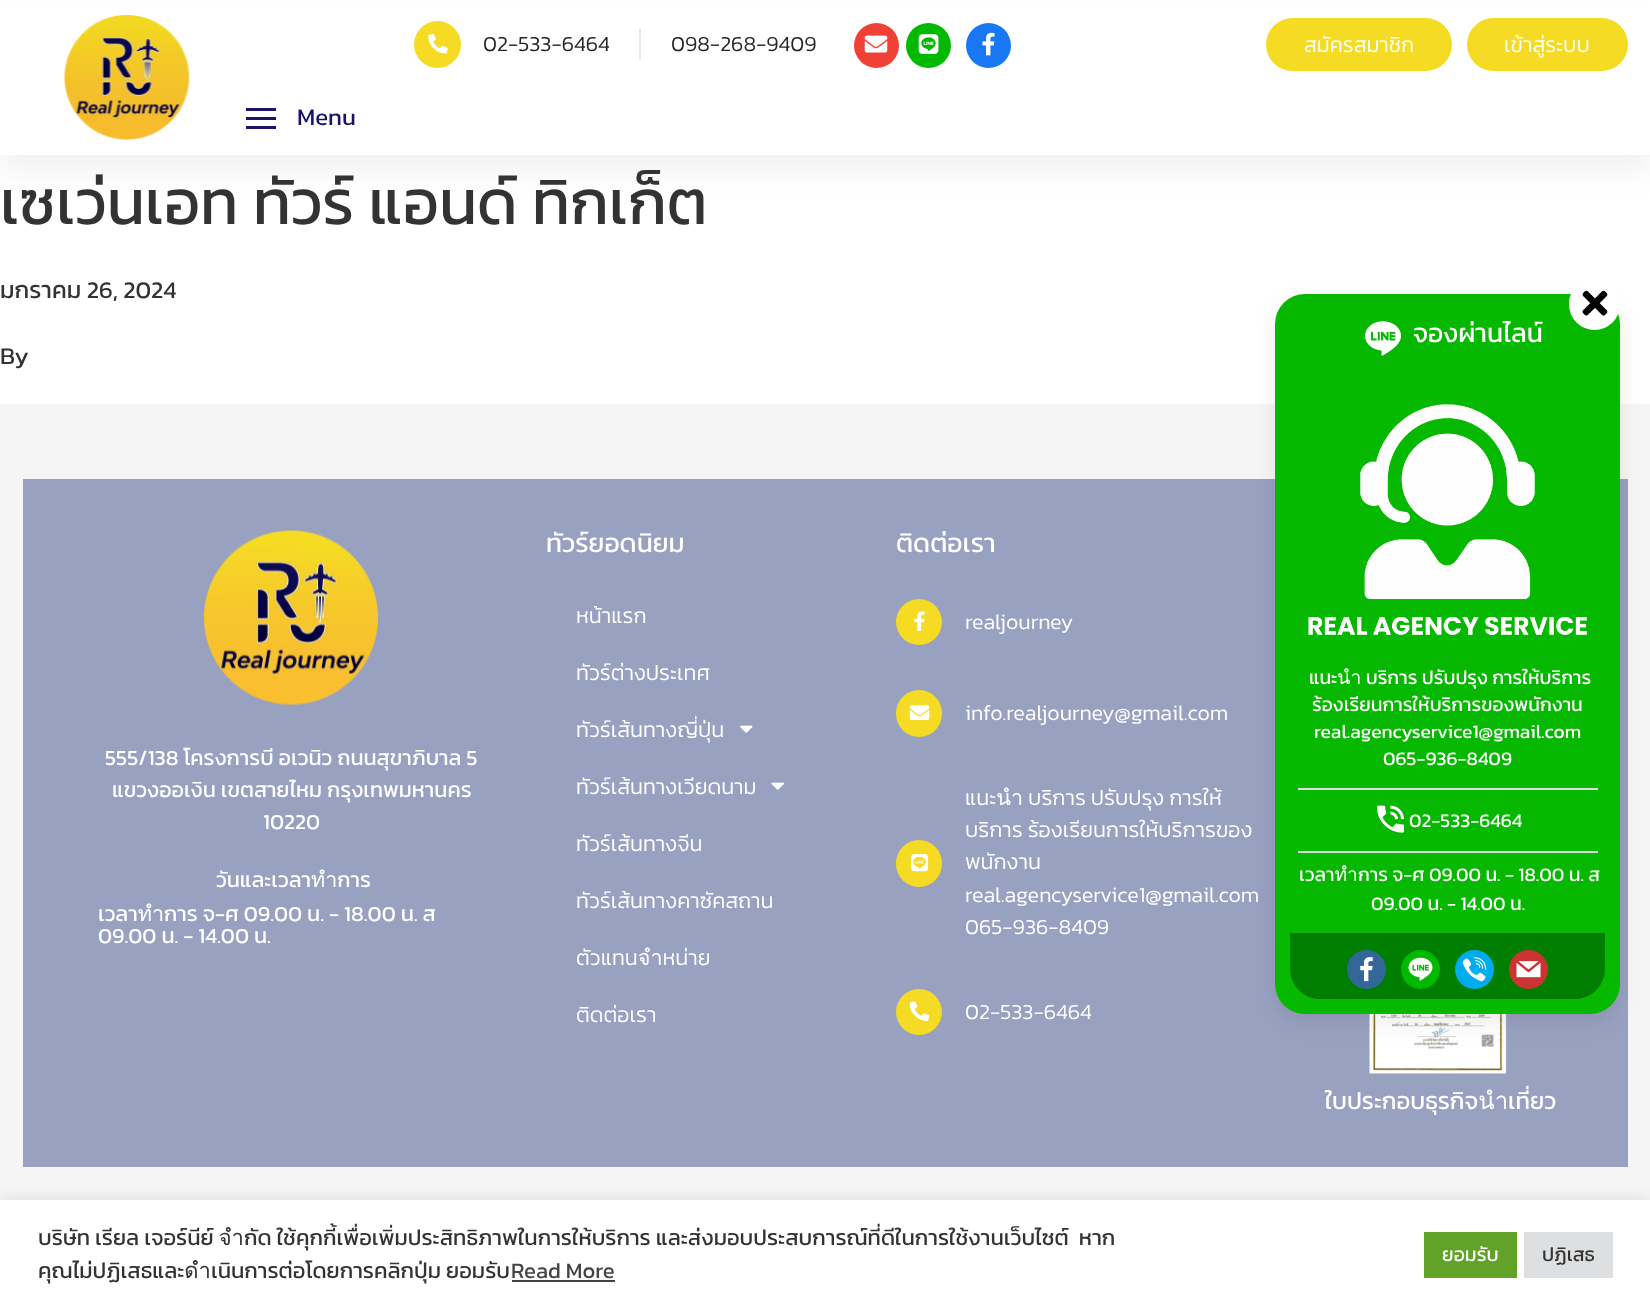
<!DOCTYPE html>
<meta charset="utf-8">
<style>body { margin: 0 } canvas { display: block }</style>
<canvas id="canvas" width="1650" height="1308"></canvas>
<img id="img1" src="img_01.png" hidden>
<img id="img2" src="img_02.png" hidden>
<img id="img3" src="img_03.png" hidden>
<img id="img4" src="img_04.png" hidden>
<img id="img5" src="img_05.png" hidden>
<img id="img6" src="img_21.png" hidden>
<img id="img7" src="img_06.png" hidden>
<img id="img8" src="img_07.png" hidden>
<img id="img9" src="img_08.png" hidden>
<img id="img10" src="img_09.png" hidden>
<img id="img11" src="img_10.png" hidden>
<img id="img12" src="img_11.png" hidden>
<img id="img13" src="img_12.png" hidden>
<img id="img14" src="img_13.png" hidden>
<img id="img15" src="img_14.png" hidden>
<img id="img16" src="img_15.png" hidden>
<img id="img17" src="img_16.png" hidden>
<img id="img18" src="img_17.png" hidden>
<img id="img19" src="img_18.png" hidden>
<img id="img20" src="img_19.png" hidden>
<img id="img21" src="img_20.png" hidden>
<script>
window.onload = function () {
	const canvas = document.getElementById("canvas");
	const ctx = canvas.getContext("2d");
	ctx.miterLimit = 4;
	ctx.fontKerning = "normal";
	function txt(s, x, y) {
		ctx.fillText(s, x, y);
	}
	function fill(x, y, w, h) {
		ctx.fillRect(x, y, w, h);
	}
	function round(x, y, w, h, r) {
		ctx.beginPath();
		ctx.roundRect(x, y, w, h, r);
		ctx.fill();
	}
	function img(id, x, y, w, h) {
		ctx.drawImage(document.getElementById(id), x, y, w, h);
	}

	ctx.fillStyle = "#FFFFFF";
	fill(0, 0, 1650, 1308);
	ctx.fillStyle = "rgba(0, 0, 0, 0.06)";
	ctx.filter = "blur(15px)";
	ctx.beginPath();
	ctx.rect(0, 15, 1650, 155);
	ctx.fill();
	ctx.filter = "none";
	ctx.fillStyle = "#FFFFFF";
	fill(0, 1, 1650, 154);
	img("img1", 64, 15, 126, 125);
	ctx.fillStyle = "#F5DB24";
	ctx.beginPath();
	ctx.arc(437.5, 44.5, 23.5, 0, Math.PI * 2);
	ctx.fill();
	img("img2", 428, 34, 20, 20);
	ctx.fillStyle = "#E7E7E7";
	fill(639, 29, 2, 31);
	ctx.fillStyle = "#EF4136";
	ctx.beginPath();
	ctx.arc(876.5, 45.5, 22.5, 0, Math.PI * 2);
	ctx.fill();
	img("img3", 864, 35, 24, 18);
	ctx.fillStyle = "#00B900";
	ctx.beginPath();
	ctx.arc(928.5, 45.5, 22.5, 0, Math.PI * 2);
	ctx.fill();
	img("img4", 918, 34, 21, 20);
	ctx.fillStyle = "#1877F2";
	ctx.beginPath();
	ctx.arc(988.5, 45.5, 22.5, 0, Math.PI * 2);
	ctx.fill();
	img("img5", 982, 32, 13, 24);
	ctx.fillStyle = "#F5DB24";
	round(1266, 18, 186, 53, 26.5);
	round(1467, 18, 161, 53, 26.5);
	ctx.fillStyle = "#1B1464";
	fill(246, 108, 30, 3);
	fill(246, 117, 30, 3);
	fill(246, 126, 30, 3);
	ctx.fillStyle = "#F5F5F5";
	fill(0, 404, 1650, 796);
	ctx.fillStyle = "#99A1C1";
	fill(23, 479, 1605, 688);
	img("img6", 1369, 1014, 138, 60);
	ctx.fillStyle = "rgba(0, 0, 0, 0.08)";
	ctx.filter = "blur(11px)";
	ctx.beginPath();
	ctx.roundRect(1275, 302, 345, 720, 30);
	ctx.fill();
	ctx.filter = "none";
	ctx.fillStyle = "#06B800";
	round(1275, 294, 345, 720, 30);
	img("img7", 1365, 321, 36, 35);
	ctx.fillStyle = "#FFFFFF";
	round(1569, 278, 51, 52, 25.5);
	img("img8", 1582, 290, 26, 26);
	img("img9", 1308, 404, 279, 232);
	ctx.fillStyle = "#DDDDDD";
	fill(1298, 788, 300, 2);
	img("img10", 1377, 805, 27, 28);
	fill(1298, 851, 300, 2);
	ctx.fillStyle = "#007E00";
	ctx.beginPath();
	ctx.roundRect(1290, 933, 315, 66, [0, 0, 30, 30]);
	ctx.fill();
	ctx.fillStyle = "#336699";
	ctx.beginPath();
	ctx.arc(1366.5, 969.5, 19.5, 0, Math.PI * 2);
	ctx.fill();
	img("img11", 1360, 957, 13, 25);
	ctx.fillStyle = "#00B900";
	ctx.beginPath();
	ctx.arc(1420.5, 969.5, 19.5, 0, Math.PI * 2);
	ctx.fill();
	img("img12", 1408, 957, 25, 24);
	ctx.fillStyle = "#00ACED";
	ctx.beginPath();
	ctx.arc(1474.5, 969.5, 19.5, 0, Math.PI * 2);
	ctx.fill();
	img("img13", 1462, 957, 25, 25);
	ctx.fillStyle = "#CC3333";
	ctx.beginPath();
	ctx.arc(1528.5, 969.5, 19.5, 0, Math.PI * 2);
	ctx.fill();
	img("img14", 1516, 961, 25, 17);
	img("img15", 204, 530, 174, 175);
	img("img16", 740, 725, 13, 8);
	img("img17", 771, 782, 13, 8);
	ctx.fillStyle = "#F5DB24";
	ctx.beginPath();
	ctx.arc(919, 622, 23, 0, Math.PI * 2);
	ctx.fill();
	img("img18", 914, 611, 11, 20);
	round(896, 690, 46, 47, 23);
	img("img19", 909, 705, 21, 15);
	round(896, 840, 46, 47, 23);
	img("img20", 911, 854, 18, 18);
	ctx.beginPath();
	ctx.arc(919, 1012, 23, 0, Math.PI * 2);
	ctx.fill();
	img("img21", 909, 1001, 21, 20);
	ctx.fillStyle = "rgba(172, 171, 171, 0.3)";
	ctx.filter = "blur(7.5px)";
	ctx.beginPath();
	ctx.rect(0, 1199, 1650, 108);
	ctx.fill();
	ctx.filter = "none";
	ctx.fillStyle = "#FFFFFF";
	fill(0, 1200, 1650, 108);
	ctx.fillStyle = "#444444";
	fill(512, 1280, 103, 2);
	ctx.fillStyle = "#61A229";
	fill(1424, 1232, 93, 46);
	ctx.fillStyle = "#DEDFE0";
	fill(1524, 1232, 89, 46);
	ctx.font = "300 21.6px Kanit";
	ctx.fillStyle = "#252525";
	txt("02-533-6464", 483, 51);
	txt("098-268-9409", 671, 51);
	ctx.fillStyle = "#FFFFFF";
	txt("สมัครสมาชิก", 1304, 52);
	txt("เข้าสู่ระบบ", 1504, 52);
	ctx.font = "24px Kanit";
	ctx.fillStyle = "#1B1464";
	txt("Menu", 297, 125);
	ctx.font = "63px Kanit";
	ctx.fillStyle = "#333333";
	txt("เซเว่นเอท ทัวร์ แอนด์ ทิกเก็ต", 0, 224);
	ctx.font = "24px Kanit";
	txt("มกราคม 26, 2024", 0, 298);
	txt("By", 0, 364);
	ctx.font = "26.5px Kanit";
	ctx.fillStyle = "#FFFFFF";
	txt("จองผ่านไลน์", 1413, 342);
	ctx.font = "19.25px Kanit";
	txt("แนะนำ บริการ ปรับปรุง การให้บริการ", 1309, 684);
	txt("ร้องเรียนการให้บริการของพนักงาน", 1312, 711);
	txt("real.agencyservice1@gmail.com", 1314, 738);
	txt("065-936-8409", 1383, 765);
	txt("02-533-6464", 1409, 827);
	txt("เวลาทำการ จ-ศ 09.00 น. - 18.00 น. ส", 1299, 881);
	txt("09.00 น. - 14.00 น.", 1371, 910);
	ctx.font = "21.6px Kanit";
	txt("555/138 โครงการบี อเวนิว ถนนสุขาภิบาล 5", 105, 765);
	txt("แขวงออเงิน เขตสายไหม กรุงเทพมหานคร", 112, 797);
	txt("10220", 263, 829);
	txt("วันและเวลาทำการ", 216, 887);
	txt("เวลาทำการ จ-ศ 09.00 น. - 18.00 น. ส", 98, 921);
	txt("09.00 น. - 14.00 น.", 98, 943);
	ctx.font = "26.5px Kanit";
	txt("ทัวร์ยอดนิยม", 546, 552);
	ctx.font = "300 21.6px Kanit";
	txt("หน้าแรก", 576, 623);
	txt("ทัวร์ต่างประเทศ", 576, 680);
	txt("ทัวร์เส้นทางญี่ปุ่น", 576, 737);
	txt("ทัวร์เส้นทางเวียดนาม", 576, 794);
	txt("ทัวร์เส้นทางจีน", 576, 851);
	txt("ทัวร์เส้นทางคาซัคสถาน", 576, 908);
	txt("ตัวแทนจำหน่าย", 576, 965);
	txt("ติดต่อเรา", 576, 1022);
	ctx.font = "26.5px Kanit";
	txt("ติดต่อเรา", 896, 552);
	ctx.font = "300 21.6px Kanit";
	txt("realjourney", 965, 629);
	txt("info.realjourney@gmail.com", 965, 720);
	txt("แนะนำ บริการ ปรับปรุง การให้", 965, 805);
	txt("บริการ ร้องเรียนการให้บริการของ", 965, 837);
	txt("พนักงาน", 965, 869);
	txt("real.agencyservice1@gmail.com", 965, 902);
	txt("065-936-8409", 965, 934);
	txt("02-533-6464", 965, 1019);
	ctx.font = "24px Kanit";
	txt("ใบประกอบธุรกิจนำเที่ยว", 1325, 1109);
	ctx.font = "22px Kanit";
	ctx.fillStyle = "#333333";
	txt("บริษัท เรียล เจอร์นีย์ จำกัด ใช้คุกกี้เพื่อเพิ่มประสิทธิภาพในการให้บริการ และส่งมอบประสบการณ์ที่ดีในการใช้งานเว็บไซต์  หาก", 38, 1245);
	txt("คุณไม่ปฏิเสธและดำเนินการต่อโดยการคลิกปุ่ม ยอมรับ", 38, 1278);
	ctx.fillStyle = "#444444";
	txt("Read More", 511, 1278);
	ctx.font = "19.5px Kanit";
	ctx.fillStyle = "#FFFFFF";
	txt("ยอมรับ", 1442, 1261);
	ctx.fillStyle = "#333333";
	txt("ปฏิเสธ", 1542, 1261);
};
</script>
